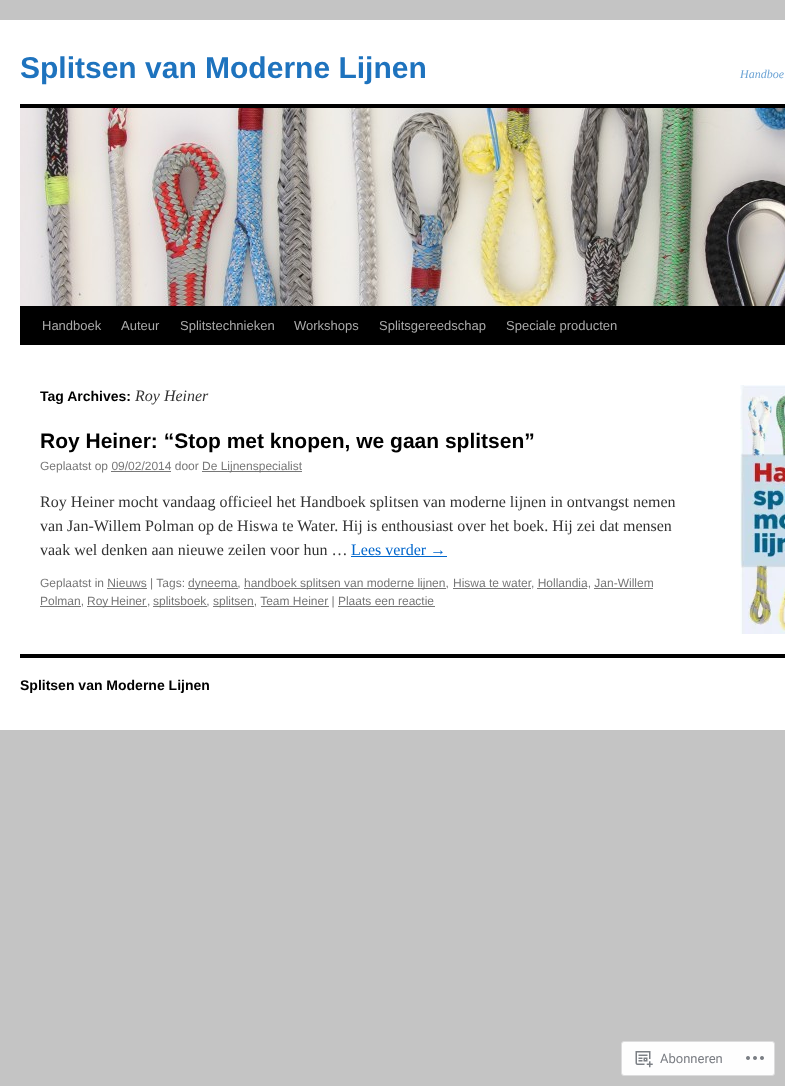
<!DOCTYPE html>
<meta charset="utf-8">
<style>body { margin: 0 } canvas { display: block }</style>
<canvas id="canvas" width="785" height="1086"></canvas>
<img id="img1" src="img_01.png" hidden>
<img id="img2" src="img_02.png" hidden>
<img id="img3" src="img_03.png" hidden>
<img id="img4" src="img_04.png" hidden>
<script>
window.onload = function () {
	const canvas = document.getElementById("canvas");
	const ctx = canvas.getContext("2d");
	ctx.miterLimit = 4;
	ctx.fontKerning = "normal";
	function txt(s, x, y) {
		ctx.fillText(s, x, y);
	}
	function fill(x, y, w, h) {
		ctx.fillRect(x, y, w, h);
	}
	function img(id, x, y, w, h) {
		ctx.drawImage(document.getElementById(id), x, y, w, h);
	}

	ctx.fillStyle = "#C4C4C4";
	fill(0, 0, 785, 1086);
	ctx.fillStyle = "#FFFFFF";
	fill(0, 20, 785, 710);
	ctx.fillStyle = "#000000";
	fill(20, 104, 765, 4);
	fill(20, 306, 765, 39);
	img("img1", 20, 108, 765, 198);
	ctx.fillStyle = "#777777";
	fill(202, 471, 100, 1);
	fill(111, 471, 60, 1);
	ctx.fillStyle = "#0066CC";
	fill(351, 556, 96, 1);
	ctx.fillStyle = "#777777";
	fill(107, 588, 40, 1);
	fill(188, 588, 50, 1);
	fill(244, 588, 202, 1);
	fill(453, 588, 78, 1);
	fill(537, 588, 50, 1);
	fill(594, 588, 59, 1);
	fill(40, 606, 41, 1);
	fill(87, 606, 60, 1);
	fill(153, 606, 54, 1);
	fill(213, 606, 41, 1);
	fill(261, 606, 68, 1);
	fill(338, 606, 97, 1);
	img("img2", 740, 385, 45, 249);
	ctx.fillStyle = "#000000";
	fill(20, 654, 765, 4);
	ctx.fillStyle = "#FEFEFE";
	ctx.beginPath();
	ctx.roundRect(621.5, 1041.5, 153, 34, 2.5);
	ctx.fill();
	ctx.strokeStyle = "#DCDCDD";
	ctx.stroke();
	img("img3", 635, 1051, 18, 17);
	img("img4", 746, 1056, 18, 4);
	ctx.font = "bold 30px Liberation Sans";
	ctx.fillStyle = "#1E73BE";
	txt("Splitsen van Moderne Lijnen", 20, 78);
	ctx.font = "italic 12px Liberation Serif";
	ctx.fillStyle = "#6DA4D5";
	txt("Handboe", 740, 78);
	ctx.font = "13px Liberation Sans";
	ctx.fillStyle = "#AAAAAA";
	txt("Handboek", 42, 330);
	txt("Auteur", 121, 330);
	txt("Splitstechnieken", 180, 330);
	txt("Workshops", 294, 330);
	txt("Splitsgereedschap", 379, 330);
	txt("Speciale producten", 506, 330);
	ctx.font = "bold 14px Liberation Sans";
	ctx.fillStyle = "#000000";
	txt("Tag Archives:", 40, 401);
	ctx.font = "italic 16px Liberation Serif";
	ctx.fillStyle = "#333333";
	txt("Roy Heiner", 135, 401);
	ctx.font = "bold 21px Liberation Sans";
	ctx.fillStyle = "#000000";
	txt("Roy Heiner: “Stop met knopen, we gaan splitsen”", 40, 448);
	ctx.font = "12px Liberation Sans";
	ctx.fillStyle = "#777777";
	txt("Geplaatst op 09/02/2014 door", 40, 470);
	txt("De Lijnenspecialist", 202, 470);
	ctx.font = "16px Liberation Serif";
	ctx.fillStyle = "#333333";
	txt("Roy Heiner mocht vandaag officieel het Handboek splitsen van moderne lijnen in ontvangst nemen", 40, 507);
	txt("van Jan-Willem Polman op de Hiswa te Water. Hij is enthousiast over het boek. Hij zei dat mensen", 40, 531);
	txt("vaak wel denken aan nieuwe zeilen voor hun …", 40, 555);
	ctx.fillStyle = "#0066CC";
	txt("Lees verder →", 351, 555);
	ctx.font = "12px Liberation Sans";
	ctx.fillStyle = "#777777";
	txt("Geplaatst in Nieuws | Tags:", 40, 587);
	txt("dyneema,", 188, 587);
	txt("handboek splitsen van moderne lijnen,", 244, 587);
	txt("Hiswa te water", 453, 587);
	txt(", Hollandia, Jan-Willem", 531, 587);
	txt("Polman,", 40, 605);
	ctx.wordSpacing = "-1px";
	txt("Roy Heiner", 87, 605);
	ctx.wordSpacing = "0px";
	txt(",", 147, 605);
	txt("splitsboek,", 153, 605);
	txt("splitsen, Team Heiner | Plaats een reactie", 213, 605);
	ctx.font = "bold 14px Liberation Sans";
	ctx.fillStyle = "#000000";
	txt("Splitsen van Moderne Lijnen", 20, 690);
	ctx.font = "13px Roboto";
	ctx.fillStyle = "#7A7D83";
	txt("Abonneren", 660, 1063);
};
</script>
